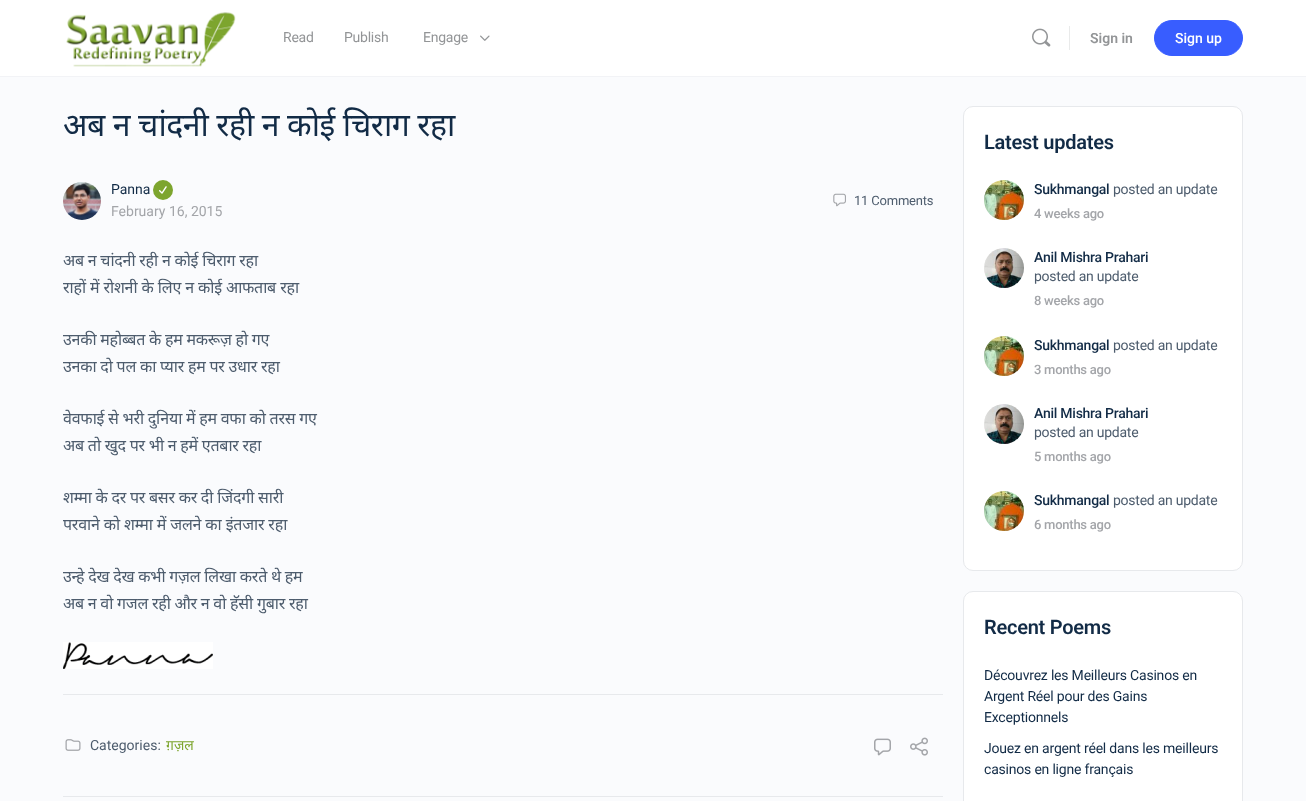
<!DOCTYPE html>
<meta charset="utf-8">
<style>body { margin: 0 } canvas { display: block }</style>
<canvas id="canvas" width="1306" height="801"></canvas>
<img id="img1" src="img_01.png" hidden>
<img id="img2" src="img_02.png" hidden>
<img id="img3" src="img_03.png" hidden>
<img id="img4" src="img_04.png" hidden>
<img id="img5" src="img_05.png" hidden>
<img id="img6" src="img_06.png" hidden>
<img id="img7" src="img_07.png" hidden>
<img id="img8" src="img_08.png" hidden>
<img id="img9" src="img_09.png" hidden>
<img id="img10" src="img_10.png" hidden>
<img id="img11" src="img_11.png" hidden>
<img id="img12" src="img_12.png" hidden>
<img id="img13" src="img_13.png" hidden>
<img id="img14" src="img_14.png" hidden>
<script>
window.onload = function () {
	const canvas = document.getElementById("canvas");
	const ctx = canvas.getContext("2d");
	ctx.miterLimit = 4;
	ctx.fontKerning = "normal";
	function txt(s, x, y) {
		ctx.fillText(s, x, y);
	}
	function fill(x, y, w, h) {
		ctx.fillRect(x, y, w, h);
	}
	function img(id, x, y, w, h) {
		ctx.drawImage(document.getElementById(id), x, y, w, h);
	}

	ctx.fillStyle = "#FAFBFD";
	fill(0, 0, 1306, 801);
	ctx.fillStyle = "#F2F3F6";
	fill(0, 76, 1306, 1);
	ctx.fillStyle = "#FFFFFF";
	fill(0, 0, 1306, 76);
	img("img1", 66, 12, 170, 55);
	img("img2", 480, 35, 10, 6);
	img("img3", 1032, 28, 19, 19);
	ctx.fillStyle = "#E9EAEA";
	fill(1069, 26, 1, 24);
	ctx.fillStyle = "#385DFF";
	ctx.beginPath();
	ctx.roundRect(1154.5, 20.5, 88, 35, 17.5);
	ctx.fill();
	ctx.strokeStyle = "#385DFF";
	ctx.stroke();
	img("img4", 63, 182, 38, 38);
	img("img5", 153, 180, 20, 20);
	img("img6", 833, 193, 13, 14);
	img("img7", 63, 642, 150, 27);
	ctx.fillStyle = "#E7E9EC";
	fill(63, 694, 880, 1);
	img("img8", 65, 739, 16, 12);
	img("img9", 874, 738, 17, 18);
	img("img10", 910, 737, 18, 19);
	fill(63, 796, 880, 1);
	ctx.fillStyle = "#FFFFFF";
	ctx.beginPath();
	ctx.roundRect(963.5, 106.5, 279, 464, 9.5);
	ctx.fill();
	ctx.strokeStyle = "#E7E9EC";
	ctx.stroke();
	img("img11", 984, 180, 40, 40);
	img("img12", 984, 248, 40, 40);
	img("img11", 984, 336, 40, 40);
	img("img13", 984, 404, 40, 40);
	img("img14", 984, 491, 40, 40);
	ctx.beginPath();
	ctx.roundRect(963.5, 591.5, 279, 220, 9.5);
	ctx.fill();
	ctx.stroke();
	ctx.letterSpacing = "-0.25px";
	ctx.font = "14px Roboto";
	ctx.fillStyle = "#939597";
	txt("Read", 283, 42);
	txt("Publish", 344, 42);
	txt("Engage", 423, 42);
	ctx.letterSpacing = "0px";
	ctx.font = "600 14px Roboto";
	txt("Sign in", 1090, 43);
	ctx.font = "500 14px Roboto";
	ctx.fillStyle = "#FFFFFF";
	txt("Sign up", 1175, 43);
	ctx.letterSpacing = "-0.5px";
	ctx.wordSpacing = "0.25px";
	ctx.font = "32px Noto Sans";
	ctx.fillStyle = "#122B46";
	txt("अब न चांदनी रही न कोई चिराग रहा", 63, 136);
	ctx.letterSpacing = "0px";
	ctx.wordSpacing = "0px";
	ctx.font = "14px Roboto";
	txt("Panna", 111, 194);
	ctx.fillStyle = "#A3A5A9";
	txt("February 16, 2015", 111, 216);
	ctx.letterSpacing = "-0.2px";
	ctx.font = "13px Roboto";
	ctx.fillStyle = "#4D5C6D";
	txt("11 Comments", 854, 205);
	ctx.letterSpacing = "-0.25px";
	ctx.font = "16px Noto Sans";
	txt("अब न चांदनी रही न कोई चिराग रहा", 63, 266);
	ctx.wordSpacing = "0.25px";
	txt("राहों में रोशनी के लिए न कोई आफताब रहा", 63, 293);
	ctx.wordSpacing = "0px";
	txt("उनकी महोब्बत के हम मकरूज़ हो गए", 63, 345);
	txt("उनका दो पल का प्यार हम पर उधार रहा", 63, 372);
	txt("वेवफाई से भरी दुनिया में हम वफा को तरस गए", 63, 424);
	txt("अब तो खुद पर भी न हमें एतबार रहा", 63, 451);
	txt("शम्मा के दर पर बसर कर दी जिंदगी सारी", 63, 503);
	ctx.wordSpacing = "0.25px";
	txt("परवाने को शम्मा में जलने का इंतजार रहा", 63, 530);
	ctx.wordSpacing = "0px";
	txt("उन्हे देख देख कभी गज़ल लिखा करते थे हम", 63, 582);
	txt("अब न वो गजल रही और न वो हॅसी गुबार रहा", 63, 609);
	ctx.letterSpacing = "0px";
	ctx.font = "14px Roboto";
	txt("Categories:", 90, 750);
	ctx.font = "14px Noto Sans";
	ctx.fillStyle = "#7DA52E";
	txt("ग़ज़ल", 166, 750);
	ctx.letterSpacing = "-0.25px";
	ctx.font = "600 20px Roboto";
	ctx.fillStyle = "#122B46";
	txt("Latest updates", 984, 149);
	ctx.font = "500 14px Roboto";
	txt("Sukhmangal", 1034, 194);
	ctx.font = "14px Roboto";
	ctx.fillStyle = "#4D5C6D";
	txt("posted an update", 1113, 194);
	ctx.font = "500 13px Roboto";
	ctx.fillStyle = "#A3A5A9";
	txt("4 weeks ago", 1034, 218);
	ctx.font = "500 14px Roboto";
	ctx.fillStyle = "#122B46";
	txt("Anil Mishra Prahari", 1034, 262);
	ctx.font = "14px Roboto";
	ctx.fillStyle = "#4D5C6D";
	txt("posted an update", 1034, 281);
	ctx.font = "500 13px Roboto";
	ctx.fillStyle = "#A3A5A9";
	txt("8 weeks ago", 1034, 305);
	ctx.font = "500 14px Roboto";
	ctx.fillStyle = "#122B46";
	txt("Sukhmangal", 1034, 350);
	ctx.font = "14px Roboto";
	ctx.fillStyle = "#4D5C6D";
	txt("posted an update", 1113, 350);
	ctx.font = "500 13px Roboto";
	ctx.fillStyle = "#A3A5A9";
	txt("3 months ago", 1034, 374);
	ctx.font = "500 14px Roboto";
	ctx.fillStyle = "#122B46";
	txt("Anil Mishra Prahari", 1034, 418);
	ctx.font = "14px Roboto";
	ctx.fillStyle = "#4D5C6D";
	txt("posted an update", 1034, 437);
	ctx.font = "500 13px Roboto";
	ctx.fillStyle = "#A3A5A9";
	txt("5 months ago", 1034, 461);
	ctx.font = "500 14px Roboto";
	ctx.fillStyle = "#122B46";
	txt("Sukhmangal", 1034, 505);
	ctx.font = "14px Roboto";
	ctx.fillStyle = "#4D5C6D";
	txt("posted an update", 1113, 505);
	ctx.font = "500 13px Roboto";
	ctx.fillStyle = "#A3A5A9";
	txt("6 months ago", 1034, 529);
	ctx.font = "600 20px Roboto";
	ctx.fillStyle = "#122B46";
	txt("Recent Poems", 984, 634);
	ctx.letterSpacing = "-0.2px";
	ctx.font = "14px Roboto";
	txt("Découvrez les Meilleurs Casinos en", 984, 680);
	txt("Argent Réel pour des Gains", 984, 701);
	txt("Exceptionnels", 984, 722);
	txt("Jouez en argent réel dans les meilleurs", 984, 753);
	txt("casinos en ligne français", 984, 774);
};
</script>
